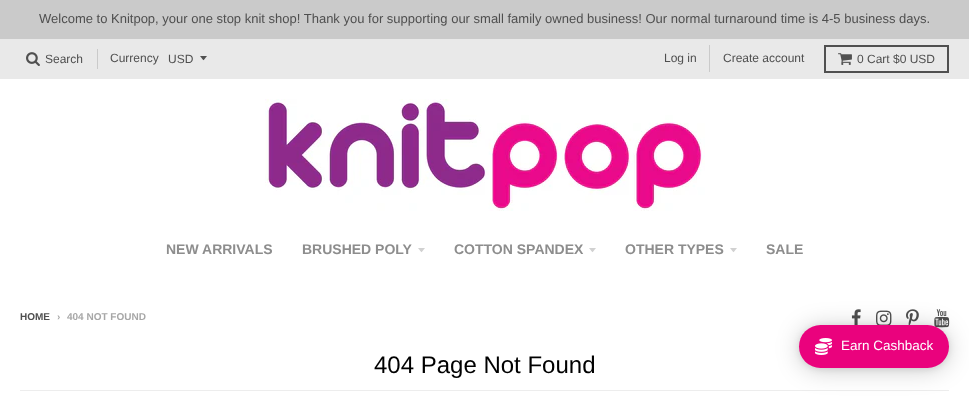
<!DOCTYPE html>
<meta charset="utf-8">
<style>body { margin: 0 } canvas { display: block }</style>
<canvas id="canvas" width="969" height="398"></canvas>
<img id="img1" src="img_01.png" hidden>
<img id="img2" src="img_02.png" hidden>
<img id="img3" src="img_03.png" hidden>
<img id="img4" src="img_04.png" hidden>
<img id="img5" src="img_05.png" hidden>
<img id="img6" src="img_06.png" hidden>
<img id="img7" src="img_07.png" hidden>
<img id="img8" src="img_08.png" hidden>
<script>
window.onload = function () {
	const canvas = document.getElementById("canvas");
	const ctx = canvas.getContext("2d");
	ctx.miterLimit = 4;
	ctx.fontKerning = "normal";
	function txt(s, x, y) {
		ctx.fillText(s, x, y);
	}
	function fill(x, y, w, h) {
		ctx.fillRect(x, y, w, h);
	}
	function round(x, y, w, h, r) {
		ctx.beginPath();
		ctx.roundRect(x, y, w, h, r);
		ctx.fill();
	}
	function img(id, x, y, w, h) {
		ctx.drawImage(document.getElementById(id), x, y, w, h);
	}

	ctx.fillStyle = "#FFFFFF";
	fill(0, 0, 969, 398);
	ctx.fillStyle = "#CACACA";
	fill(0, 0, 969, 39);
	ctx.fillStyle = "#E9E9E9";
	fill(0, 39, 969, 40);
	img("img1", 26, 52, 14, 14);
	ctx.fillStyle = "#CACACA";
	fill(97, 49, 1, 20);
	ctx.fillStyle = "#505050";
	ctx.beginPath();
	ctx.moveTo(200, 56);
	ctx.bezierCurveTo(204.5, 61.5, 202.5, 61.5, 207, 56);
	ctx.closePath();
	ctx.fill();
	ctx.fillStyle = "#CACACA";
	fill(709, 45, 1, 27);
	ctx.strokeStyle = "#505050";
	ctx.lineWidth = 2;
	ctx.strokeRect(825, 46, 123, 26);
	img("img2", 838, 53, 14, 12);
	img("img3", 265, 99, 440, 112);
	ctx.fillStyle = "#D1D1D1";
	ctx.beginPath();
	ctx.moveTo(418, 248);
	ctx.bezierCurveTo(422.5, 253.5, 420.5, 253.5, 425, 248);
	ctx.closePath();
	ctx.fill();
	ctx.beginPath();
	ctx.moveTo(589, 248);
	ctx.bezierCurveTo(593.5, 253.5, 591.5, 253.5, 596, 248);
	ctx.closePath();
	ctx.fill();
	ctx.beginPath();
	ctx.moveTo(730, 248);
	ctx.bezierCurveTo(734.5, 253.5, 732.5, 253.5, 737, 248);
	ctx.closePath();
	ctx.fill();
	img("img4", 851, 309, 10, 16);
	img("img5", 876, 310, 16, 15);
	img("img6", 906, 309, 13, 16);
	img("img7", 934, 309, 16, 19);
	ctx.fillStyle = "#EDEDED";
	fill(20, 390, 929, 1);
	ctx.fillStyle = "rgba(0, 0, 0, 0.2)";
	ctx.filter = "blur(12px)";
	ctx.beginPath();
	ctx.roundRect(799, 327, 150, 43, 21.5);
	ctx.fill();
	ctx.filter = "none";
	ctx.fillStyle = "rgba(0, 0, 0, 0.1)";
	ctx.filter = "blur(3px)";
	ctx.beginPath();
	ctx.roundRect(799, 326, 150, 43, 21.5);
	ctx.fill();
	ctx.filter = "none";
	ctx.fillStyle = "#EA027D";
	round(799, 325, 150, 43, 21.5);
	img("img8", 815, 338, 17, 17);
	ctx.font = "13px Liberation Sans";
	ctx.fillStyle = "#4F4F4F";
	txt("Welcome to Knitpop, your one stop knit shop! Thank you for supporting our small family owned business! Our normal turnaround time is 4-5 business days.", 39, 23);
	ctx.font = "12px Liberation Sans";
	txt("Search", 45, 63);
	txt("Currency", 110, 62);
	txt("USD", 168, 63);
	txt("Log in", 664, 62);
	txt("Create account", 723, 62);
	txt("0 Cart $0 USD", 857, 63);
	ctx.font = "bold 14px Liberation Sans";
	ctx.fillStyle = "#8D8D8D";
	txt("NEW ARRIVALS", 166, 254);
	txt("BRUSHED POLY", 302, 254);
	txt("COTTON SPANDEX", 454, 254);
	txt("OTHER TYPES", 625, 254);
	txt("SALE", 766, 254);
	ctx.font = "bold 10px Liberation Sans";
	ctx.fillStyle = "#4F4F4F";
	txt("HOME", 20, 320);
	ctx.fillStyle = "#A7A7A7";
	txt("›", 57, 320);
	txt("404 NOT FOUND", 67, 320);
	ctx.font = "24px Liberation Sans";
	ctx.fillStyle = "#000000";
	txt("404 Page Not Found", 374, 373);
	ctx.font = "13.5px Liberation Sans";
	ctx.fillStyle = "#FFFFFF";
	txt("Earn Cashback", 841, 350);
};
</script>
